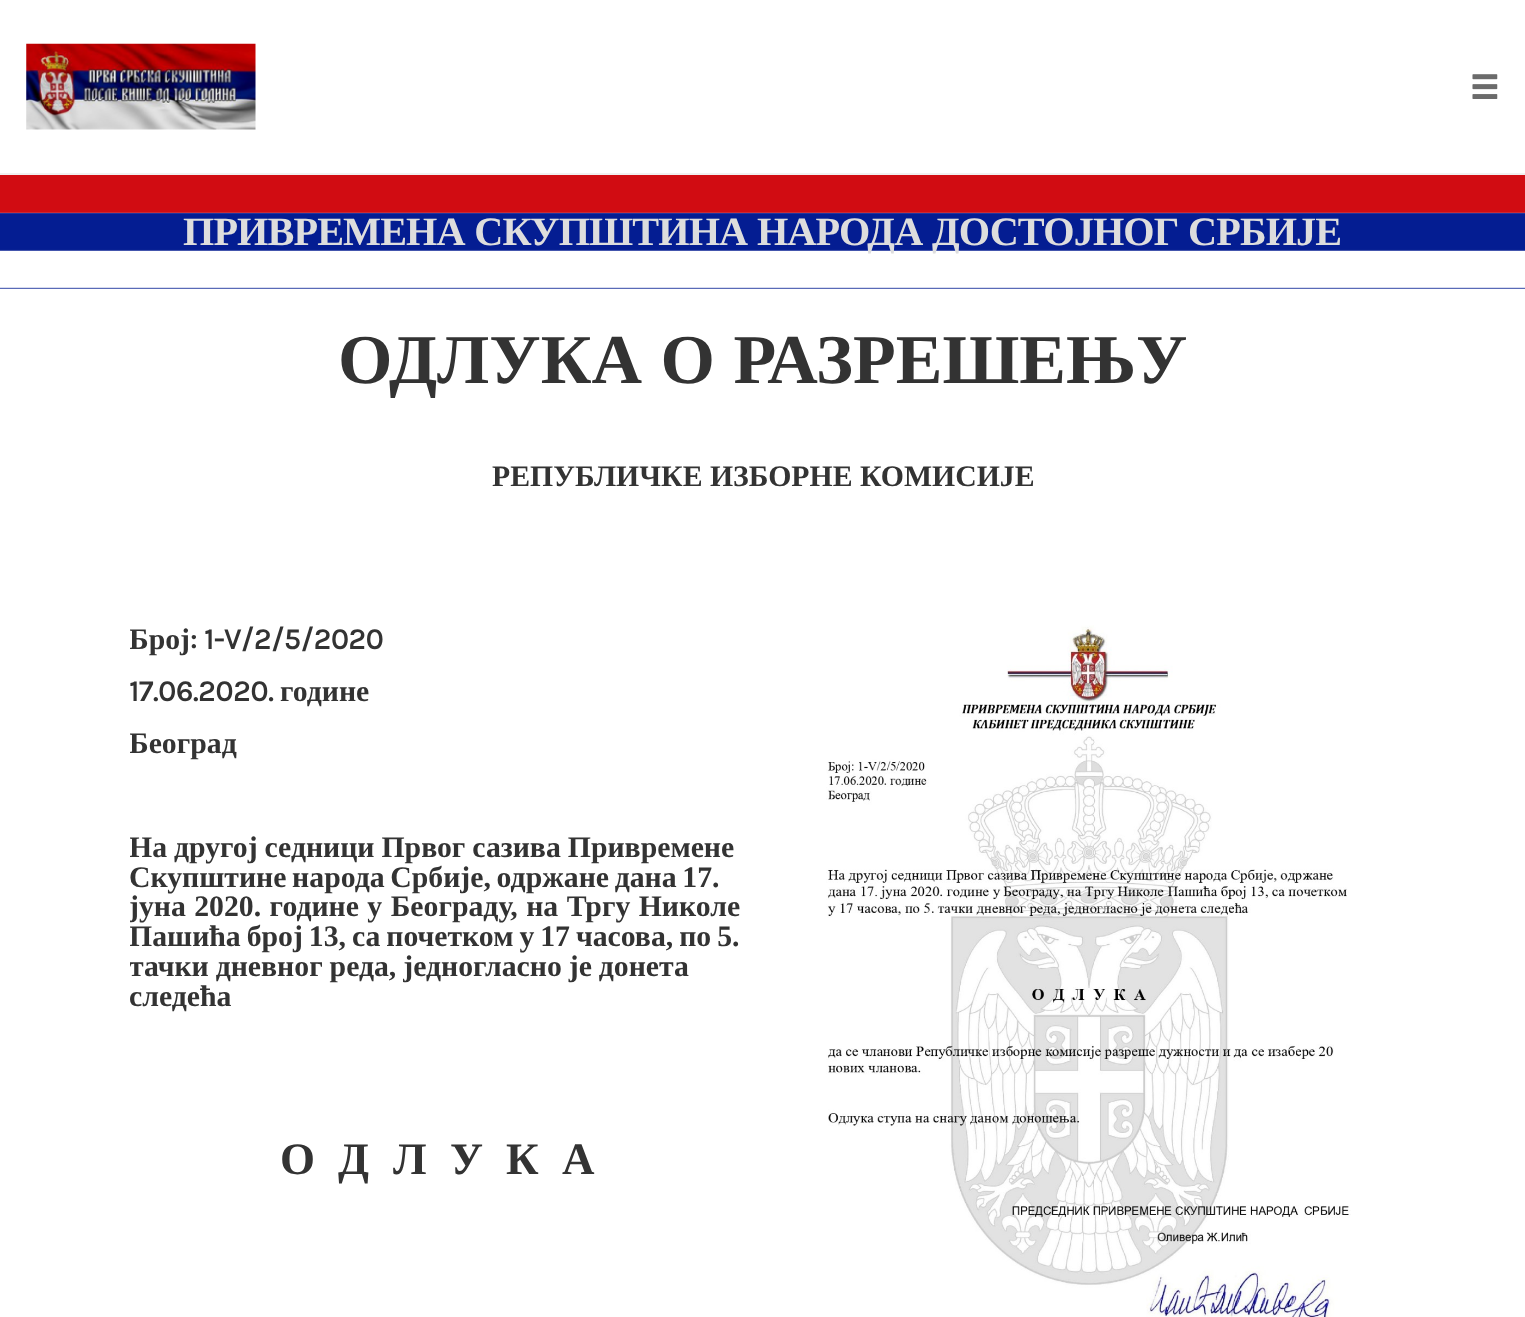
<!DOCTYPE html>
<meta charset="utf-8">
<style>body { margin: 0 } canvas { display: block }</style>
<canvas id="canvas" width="1525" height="1317"></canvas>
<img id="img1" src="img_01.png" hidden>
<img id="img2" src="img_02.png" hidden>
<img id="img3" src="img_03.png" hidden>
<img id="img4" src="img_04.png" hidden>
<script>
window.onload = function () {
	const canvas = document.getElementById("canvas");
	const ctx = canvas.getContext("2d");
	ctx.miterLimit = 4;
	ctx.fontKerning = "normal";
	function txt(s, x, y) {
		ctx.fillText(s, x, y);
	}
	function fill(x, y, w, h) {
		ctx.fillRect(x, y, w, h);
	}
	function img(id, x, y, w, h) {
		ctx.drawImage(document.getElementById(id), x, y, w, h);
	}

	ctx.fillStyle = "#FFFFFF";
	fill(0, 0, 1525, 1317);
	ctx.fillStyle = "#F0F0F0";
	fill(0, 173, 1525, 2);
	img("img1", 26, 43, 230, 87);
	img("img2", 1472, 74, 26, 25);
	img("img3", 0, 175, 1525, 114);
	img("img4", 826, 625, 525, 692);
	ctx.letterSpacing = "-0.9px";
	ctx.wordSpacing = "0.5px";
	ctx.font = "bold 40.25px Liberation Serif";
	ctx.fillStyle = "#DDDDDD";
	txt("ПРИВРЕМЕНА СКУПШТИНА НАРОДА ДОСТОЈНОГ СРБИЈЕ", 183, 245);
	ctx.letterSpacing = "0px";
	ctx.wordSpacing = "1px";
	ctx.font = "bold 70px Liberation Serif";
	ctx.fillStyle = "#333333";
	txt("ОДЛУКА О РАЗРЕШЕЊУ", 338, 383);
	ctx.wordSpacing = "0px";
	ctx.font = "bold 29.75px Liberation Serif";
	txt("РЕПУБЛИЧКЕ ИЗБОРНЕ КОМИСИЈЕ", 492, 486);
	ctx.save();
	ctx.beginPath();
	ctx.rect(130, 613, 616, 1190);
	ctx.clip();
	txt("Број", 129, 649);
	ctx.restore();
	ctx.font = "bold 29.75px Karla";
	txt(": 1-V/2/5/2020", 190, 649);
	txt("17.06.2020.", 129, 701);
	ctx.font = "bold 29.75px Liberation Serif";
	txt("године", 280, 701);
	ctx.save();
	ctx.beginPath();
	ctx.rect(130, 613, 616, 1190);
	ctx.clip();
	txt("Београд", 129, 753);
	ctx.wordSpacing = "-0.5px";
	txt("На другој седници Првог сазива Привремене", 129, 857);
	ctx.restore();
	ctx.wordSpacing = "-1.75px";
	txt("Скупштине народа Србије, одржане дана 17.", 129, 887);
	ctx.save();
	ctx.beginPath();
	ctx.rect(130, 613, 616, 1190);
	ctx.clip();
	ctx.wordSpacing = "1px";
	txt("јуна 2020. године у Београду, на Тргу Николе", 129, 916);
	ctx.wordSpacing = "-1.5px";
	txt("Пашића број 13, са почетком у 17 часова, по 5.", 129, 946);
	ctx.wordSpacing = "-0.5px";
	txt("тачки дневног реда, једногласно је донета", 129, 976);
	ctx.wordSpacing = "0px";
	txt("следећа", 129, 1006);
	ctx.restore();
	ctx.wordSpacing = "0px";
	ctx.font = "bold 45px Liberation Serif";
	txt("О", 280, 1174);
	txt("Д", 338, 1174);
	txt("Л", 393, 1174);
	txt("У", 450, 1174);
	txt("К", 506, 1174);
	txt("А", 562, 1174);
};
</script>
